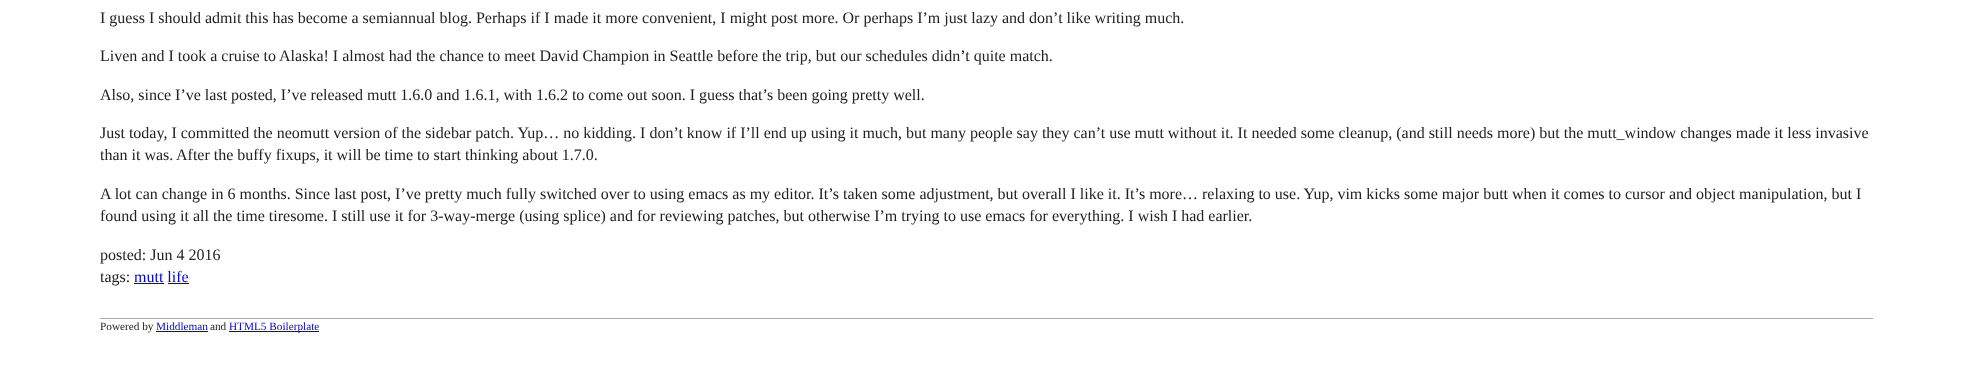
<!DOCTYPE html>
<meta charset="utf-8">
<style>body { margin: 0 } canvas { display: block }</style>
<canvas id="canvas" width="1973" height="378"></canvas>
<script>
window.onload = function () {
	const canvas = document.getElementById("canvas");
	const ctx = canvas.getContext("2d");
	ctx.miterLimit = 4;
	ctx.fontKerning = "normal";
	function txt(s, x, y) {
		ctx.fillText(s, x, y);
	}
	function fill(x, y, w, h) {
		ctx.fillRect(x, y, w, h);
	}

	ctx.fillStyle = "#FFFFFF";
	fill(0, 0, 1973, 378);
	ctx.fillStyle = "#0000EE";
	fill(134, 283, 30, 1);
	fill(168, 283, 21, 1);
	ctx.fillStyle = "#AAAAAA";
	fill(100, 318, 1773, 1);
	ctx.fillStyle = "#0000EE";
	fill(156, 331, 52, 1);
	fill(229, 331, 90, 1);
	ctx.font = "16px Liberation Serif";
	ctx.fillStyle = "#222222";
	txt("I guess I should admit this has become a semiannual blog. Perhaps if I made it more convenient, I might post more. Or perhaps I’m just lazy and don’t like writing much.", 100, 23);
	txt("Liven and I took a cruise to Alaska! I almost had the chance to meet David Champion in Seattle before the trip, but our schedules didn’t quite match.", 100, 61);
	txt("Also, since I’ve last posted, I’ve released mutt 1.6.0 and 1.6.1, with 1.6.2 to come out soon. I guess that’s been going pretty well.", 100, 100);
	txt("Just today, I committed the neomutt version of the sidebar patch. Yup… no kidding. I don’t know if I’ll end up using it much, but many people say they can’t use mutt without it. It needed some cleanup, (and still needs more) but the mutt_window changes made it less invasive", 100, 138);
	txt("than it was.", 100, 160);
	txt("After the buffy fixups, it will be time to start thinking about 1.7.0.", 176, 160);
	txt("A lot can change in 6 months. Since last post, I’ve pretty much fully switched over to using emacs as my editor. It’s taken some adjustment, but overall I like it. It’s more… relaxing to use. Yup, vim kicks some major butt when it comes to cursor and object manipulation, but I", 100, 199);
	txt("found using it all the time tiresome. I still use it for 3-way-merge (using splice) and for reviewing patches, but otherwise I’m trying to use emacs for everything. I wish I had earlier.", 100, 221);
	txt("posted: Jun 4 2016", 100, 260);
	txt("tags:", 100, 282);
	ctx.fillStyle = "#0000EE";
	txt("mutt life", 134, 282);
	ctx.font = "11.25px Liberation Serif";
	ctx.fillStyle = "#222222";
	txt("Powered by", 100, 330);
	ctx.fillStyle = "#0000EE";
	txt("Middleman", 156, 330);
	ctx.fillStyle = "#222222";
	txt("and", 210, 330);
	ctx.fillStyle = "#0000EE";
	txt("HTML5 Boilerplate", 229, 330);
};
</script>
